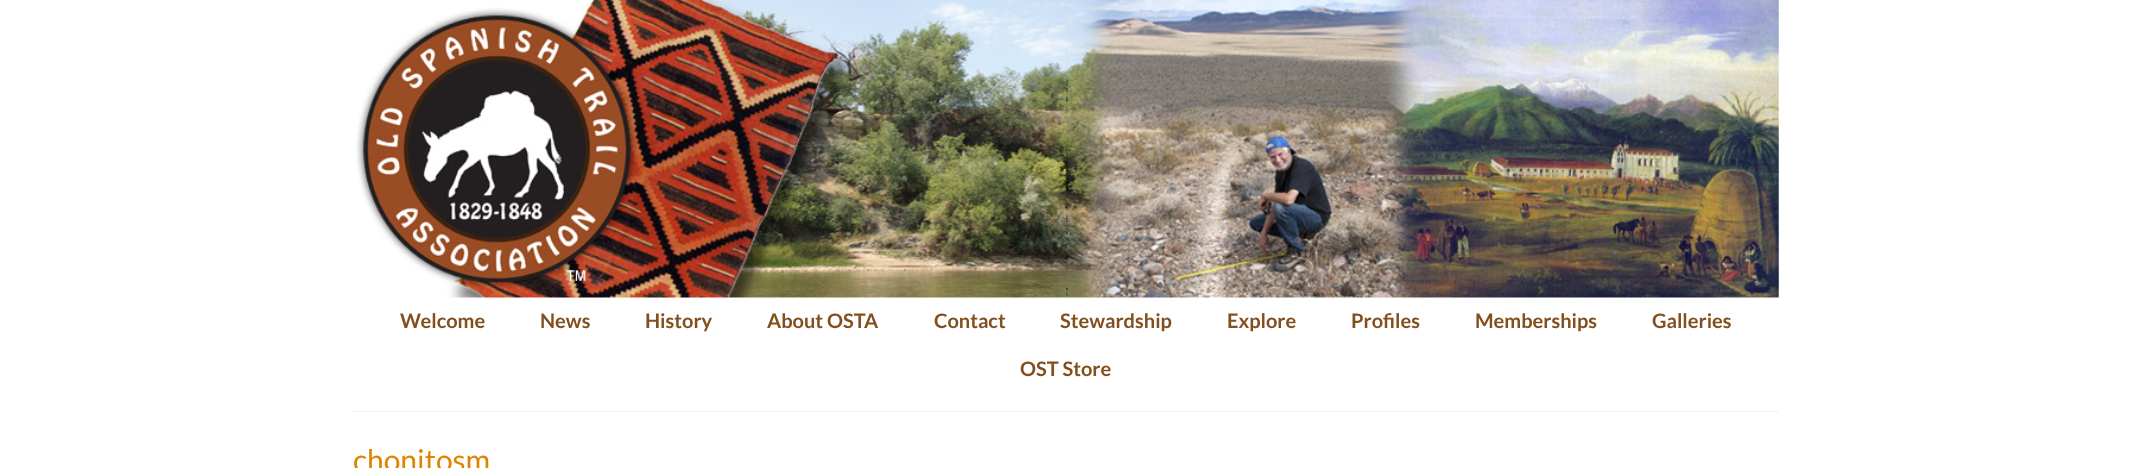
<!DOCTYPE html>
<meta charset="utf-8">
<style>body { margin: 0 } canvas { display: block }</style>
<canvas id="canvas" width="2131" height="468"></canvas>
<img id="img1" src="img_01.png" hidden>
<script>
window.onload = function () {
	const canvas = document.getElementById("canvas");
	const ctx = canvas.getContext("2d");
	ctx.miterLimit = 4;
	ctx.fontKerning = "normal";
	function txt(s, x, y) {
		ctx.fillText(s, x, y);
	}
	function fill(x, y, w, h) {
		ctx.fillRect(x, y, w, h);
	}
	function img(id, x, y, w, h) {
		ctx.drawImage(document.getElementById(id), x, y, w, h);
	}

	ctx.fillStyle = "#FFFFFF";
	fill(0, 0, 2131, 468);
	img("img1", 356, 0, 1423, 298);
	ctx.fillStyle = "#F2F2F2";
	fill(354, 411, 1425, 1);
	ctx.font = "bold 20px Lato";
	ctx.fillStyle = "#824F1D";
	txt("Welcome", 400, 328);
	txt("News", 540, 328);
	txt("History", 645, 328);
	txt("About OSTA", 767, 328);
	txt("Contact", 934, 328);
	txt("Stewardship", 1060, 328);
	txt("Explore", 1227, 328);
	txt("Profiles", 1351, 328);
	txt("Memberships", 1475, 328);
	txt("Galleries", 1652, 328);
	txt("OST Store", 1020, 376);
	ctx.font = "30px Lato";
	ctx.fillStyle = "#DD8500";
	txt("chonitosm", 353, 471);
};
</script>
